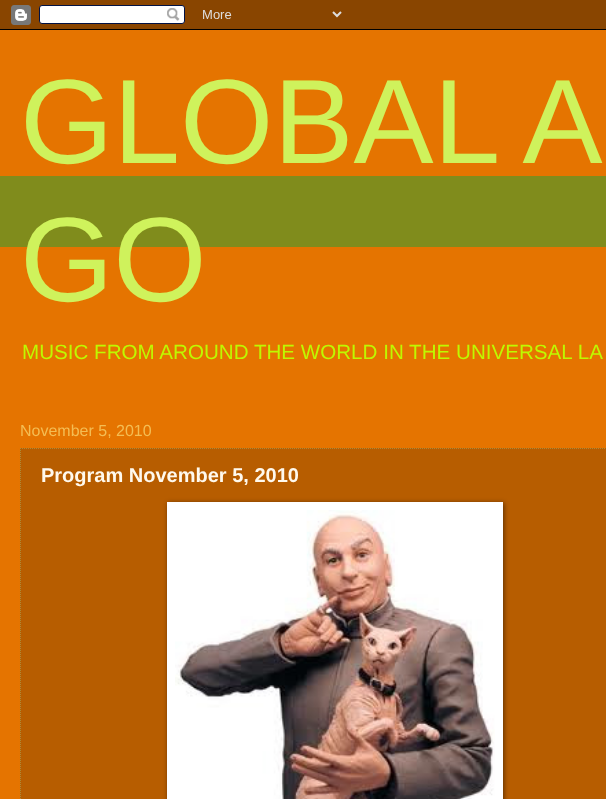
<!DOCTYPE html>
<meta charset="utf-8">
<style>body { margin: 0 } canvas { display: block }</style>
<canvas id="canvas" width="606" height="799"></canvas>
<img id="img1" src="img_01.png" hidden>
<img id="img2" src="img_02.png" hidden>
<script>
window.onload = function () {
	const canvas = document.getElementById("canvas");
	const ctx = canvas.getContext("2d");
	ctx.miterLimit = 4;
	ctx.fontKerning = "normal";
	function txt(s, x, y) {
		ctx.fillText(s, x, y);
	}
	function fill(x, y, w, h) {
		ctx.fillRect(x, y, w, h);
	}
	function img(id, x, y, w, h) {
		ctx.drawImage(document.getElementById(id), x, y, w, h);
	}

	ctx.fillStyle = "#E57400";
	fill(0, 0, 606, 799);
	img("img1", 0, 0, 606, 30);
	ctx.fillStyle = "#808C1C";
	fill(0, 176, 606, 71);
	ctx.fillStyle = "#B75D00";
	fill(20, 448, 586, 351);
	ctx.beginPath();
	ctx.moveTo(20, 448.5);
	ctx.lineTo(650, 448.5);
	ctx.strokeStyle = "#AC8939";
	ctx.setLineDash([1, 1]);
	ctx.stroke();
	ctx.beginPath();
	ctx.moveTo(20.5, 448);
	ctx.lineTo(20.5, 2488);
	ctx.stroke();
	ctx.fillStyle = "rgba(0, 0, 0, 0.5)";
	ctx.filter = "blur(2.5px)";
	ctx.beginPath();
	ctx.rect(168, 503, 336, 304);
	ctx.fill();
	ctx.filter = "none";
	ctx.fillStyle = "#FFFFFF";
	fill(167, 502, 336, 297);
	img("img2", 175, 510, 320, 289);
	ctx.font = "120px Liberation Sans";
	ctx.fillStyle = "#CFF25C";
	txt("GLOBAL A", 20, 163);
	txt("GO", 20, 301);
	ctx.font = "20.6px Liberation Sans";
	ctx.fillStyle = "#BFF800";
	txt("MUSIC FROM AROUND THE WORLD IN THE UNIVERSAL LA", 22, 359);
	ctx.font = "16px Liberation Sans";
	ctx.fillStyle = "#F4BD53";
	txt("November 5, 2010", 20, 436);
	ctx.font = "bold 20px Liberation Sans";
	ctx.fillStyle = "#FFF9ED";
	txt("Program November 5, 2010", 41, 482);
};
</script>
